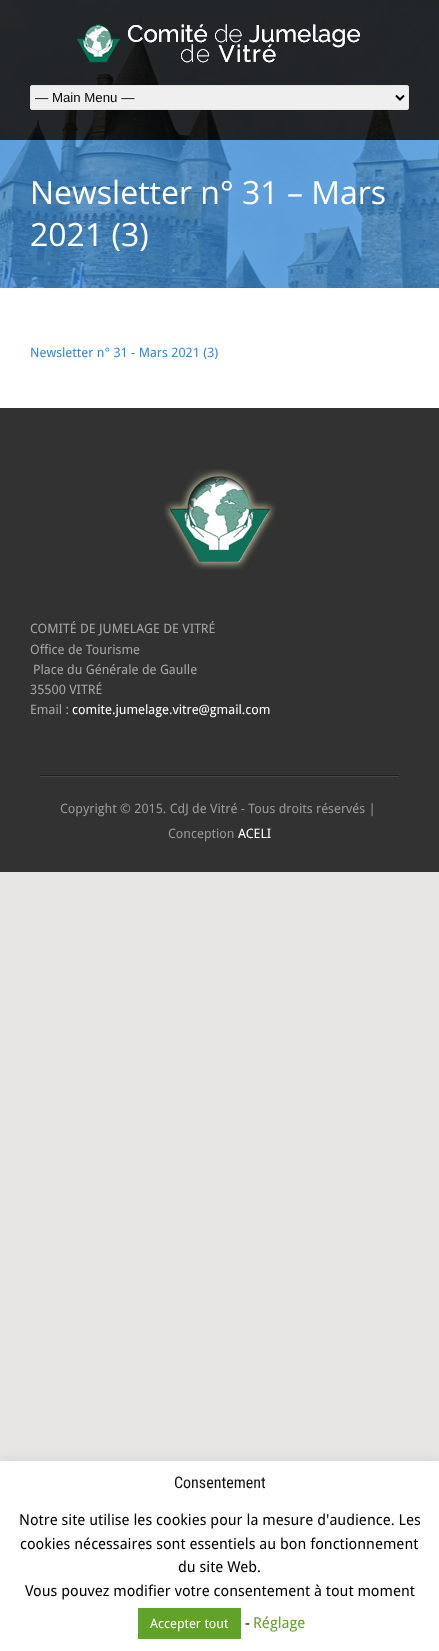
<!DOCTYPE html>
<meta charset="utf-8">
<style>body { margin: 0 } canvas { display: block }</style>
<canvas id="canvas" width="439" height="1651"></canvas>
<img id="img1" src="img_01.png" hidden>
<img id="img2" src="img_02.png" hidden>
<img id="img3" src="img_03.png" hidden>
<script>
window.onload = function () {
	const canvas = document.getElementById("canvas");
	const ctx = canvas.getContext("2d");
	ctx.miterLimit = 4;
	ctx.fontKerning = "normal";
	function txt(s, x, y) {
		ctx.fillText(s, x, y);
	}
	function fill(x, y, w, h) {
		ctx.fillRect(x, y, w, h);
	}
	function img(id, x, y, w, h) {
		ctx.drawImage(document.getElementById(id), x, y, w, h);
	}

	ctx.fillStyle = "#E8E5E5";
	fill(0, 0, 439, 1651);
	ctx.fillStyle = "#FFFFFF";
	fill(0, 288, 439, 120);
	img("img1", 0, 0, 439, 288);
	ctx.fillStyle = "rgba(0, 0, 0, 0.83)";
	fill(0, 0, 439, 140);
	img("img2", 77, 24, 283, 39);
	ctx.fillStyle = "#EFEFEF";
	ctx.beginPath();
	ctx.roundRect(30.5, 85.5, 378, 24, 1.5);
	ctx.fill();
	ctx.strokeStyle = "#E5E5E5";
	ctx.stroke();
	ctx.beginPath();
	ctx.moveTo(396, 95.5);
	ctx.lineTo(400, 99.5);
	ctx.lineTo(404, 95.5);
	ctx.strokeStyle = "#000000";
	ctx.lineWidth = 2;
	ctx.stroke();
	ctx.fillStyle = "rgba(51, 137, 215, 0.7)";
	fill(0, 140, 439, 148);
	ctx.fillStyle = "#323232";
	fill(0, 408, 439, 464);
	img("img3", 164, 469, 112, 101);
	ctx.fillStyle = "#1E1E1E";
	fill(40, 775, 359, 1);
	ctx.fillStyle = "#494949";
	fill(40, 776, 359, 1);
	ctx.fillStyle = "rgba(172, 171, 171, 0.3)";
	ctx.filter = "blur(5px)";
	ctx.beginPath();
	ctx.rect(0, 1460, 439, 190);
	ctx.fill();
	ctx.filter = "none";
	ctx.fillStyle = "#FFFFFF";
	fill(0, 1461, 439, 190);
	ctx.fillStyle = "#61A229";
	fill(138, 1608, 103, 31);
	ctx.font = "13.25px Liberation Sans";
	ctx.fillStyle = "#000000";
	txt("— Main Menu —", 35, 102);
	ctx.font = "32px Open Sans";
	ctx.fillStyle = "#FFFFFF";
	txt("Newsletter n° 31 – Mars", 30, 204);
	txt("2021 (3)", 30, 246);
	ctx.font = "13px Droid Sans";
	ctx.fillStyle = "#3389D7";
	txt("Newsletter n° 31 - Mars 2021 (3)", 30, 357);
	ctx.fillStyle = "#A5A5A5";
	txt("COMITÉ DE JUMELAGE DE VITRÉ", 30, 633);
	txt("Office de Tourisme", 30, 654);
	txt("Place du Générale de Gaulle", 33, 674);
	txt("35500 VITRÉ", 30, 694);
	txt("Email :", 30, 714);
	ctx.fillStyle = "#FFFFFF";
	txt("comite.jumelage.vitre@gmail.com", 72, 714);
	ctx.fillStyle = "#999999";
	txt("Copyright © 2015. CdJ de Vitré - Tous droits réservés |", 60, 813);
	txt("Conception", 168, 838);
	ctx.fillStyle = "#FFFFFF";
	txt("ACELI", 238, 838);
	ctx.font = "16px Roboto Condensed";
	ctx.fillStyle = "#111111";
	txt("Consentement", 174, 1488);
	ctx.font = "15px Droid Sans";
	ctx.fillStyle = "#000000";
	txt("Notre site utilise les cookies pour la mesure d'audience. Les", 19, 1525);
	txt("cookies nécessaires sont essentiels au bon fonctionnement", 20, 1549);
	txt("du site Web.", 178, 1572);
	txt("Vous pouvez modifier votre consentement à tout moment", 25, 1596);
	ctx.font = "13px Droid Sans";
	ctx.fillStyle = "#FFFFFF";
	txt("Accepter tout", 150, 1628);
	ctx.font = "15px Droid Sans";
	ctx.fillStyle = "#000000";
	txt("-", 245, 1628);
	ctx.fillStyle = "#62A329";
	txt("Réglage", 253, 1628);
};
</script>
